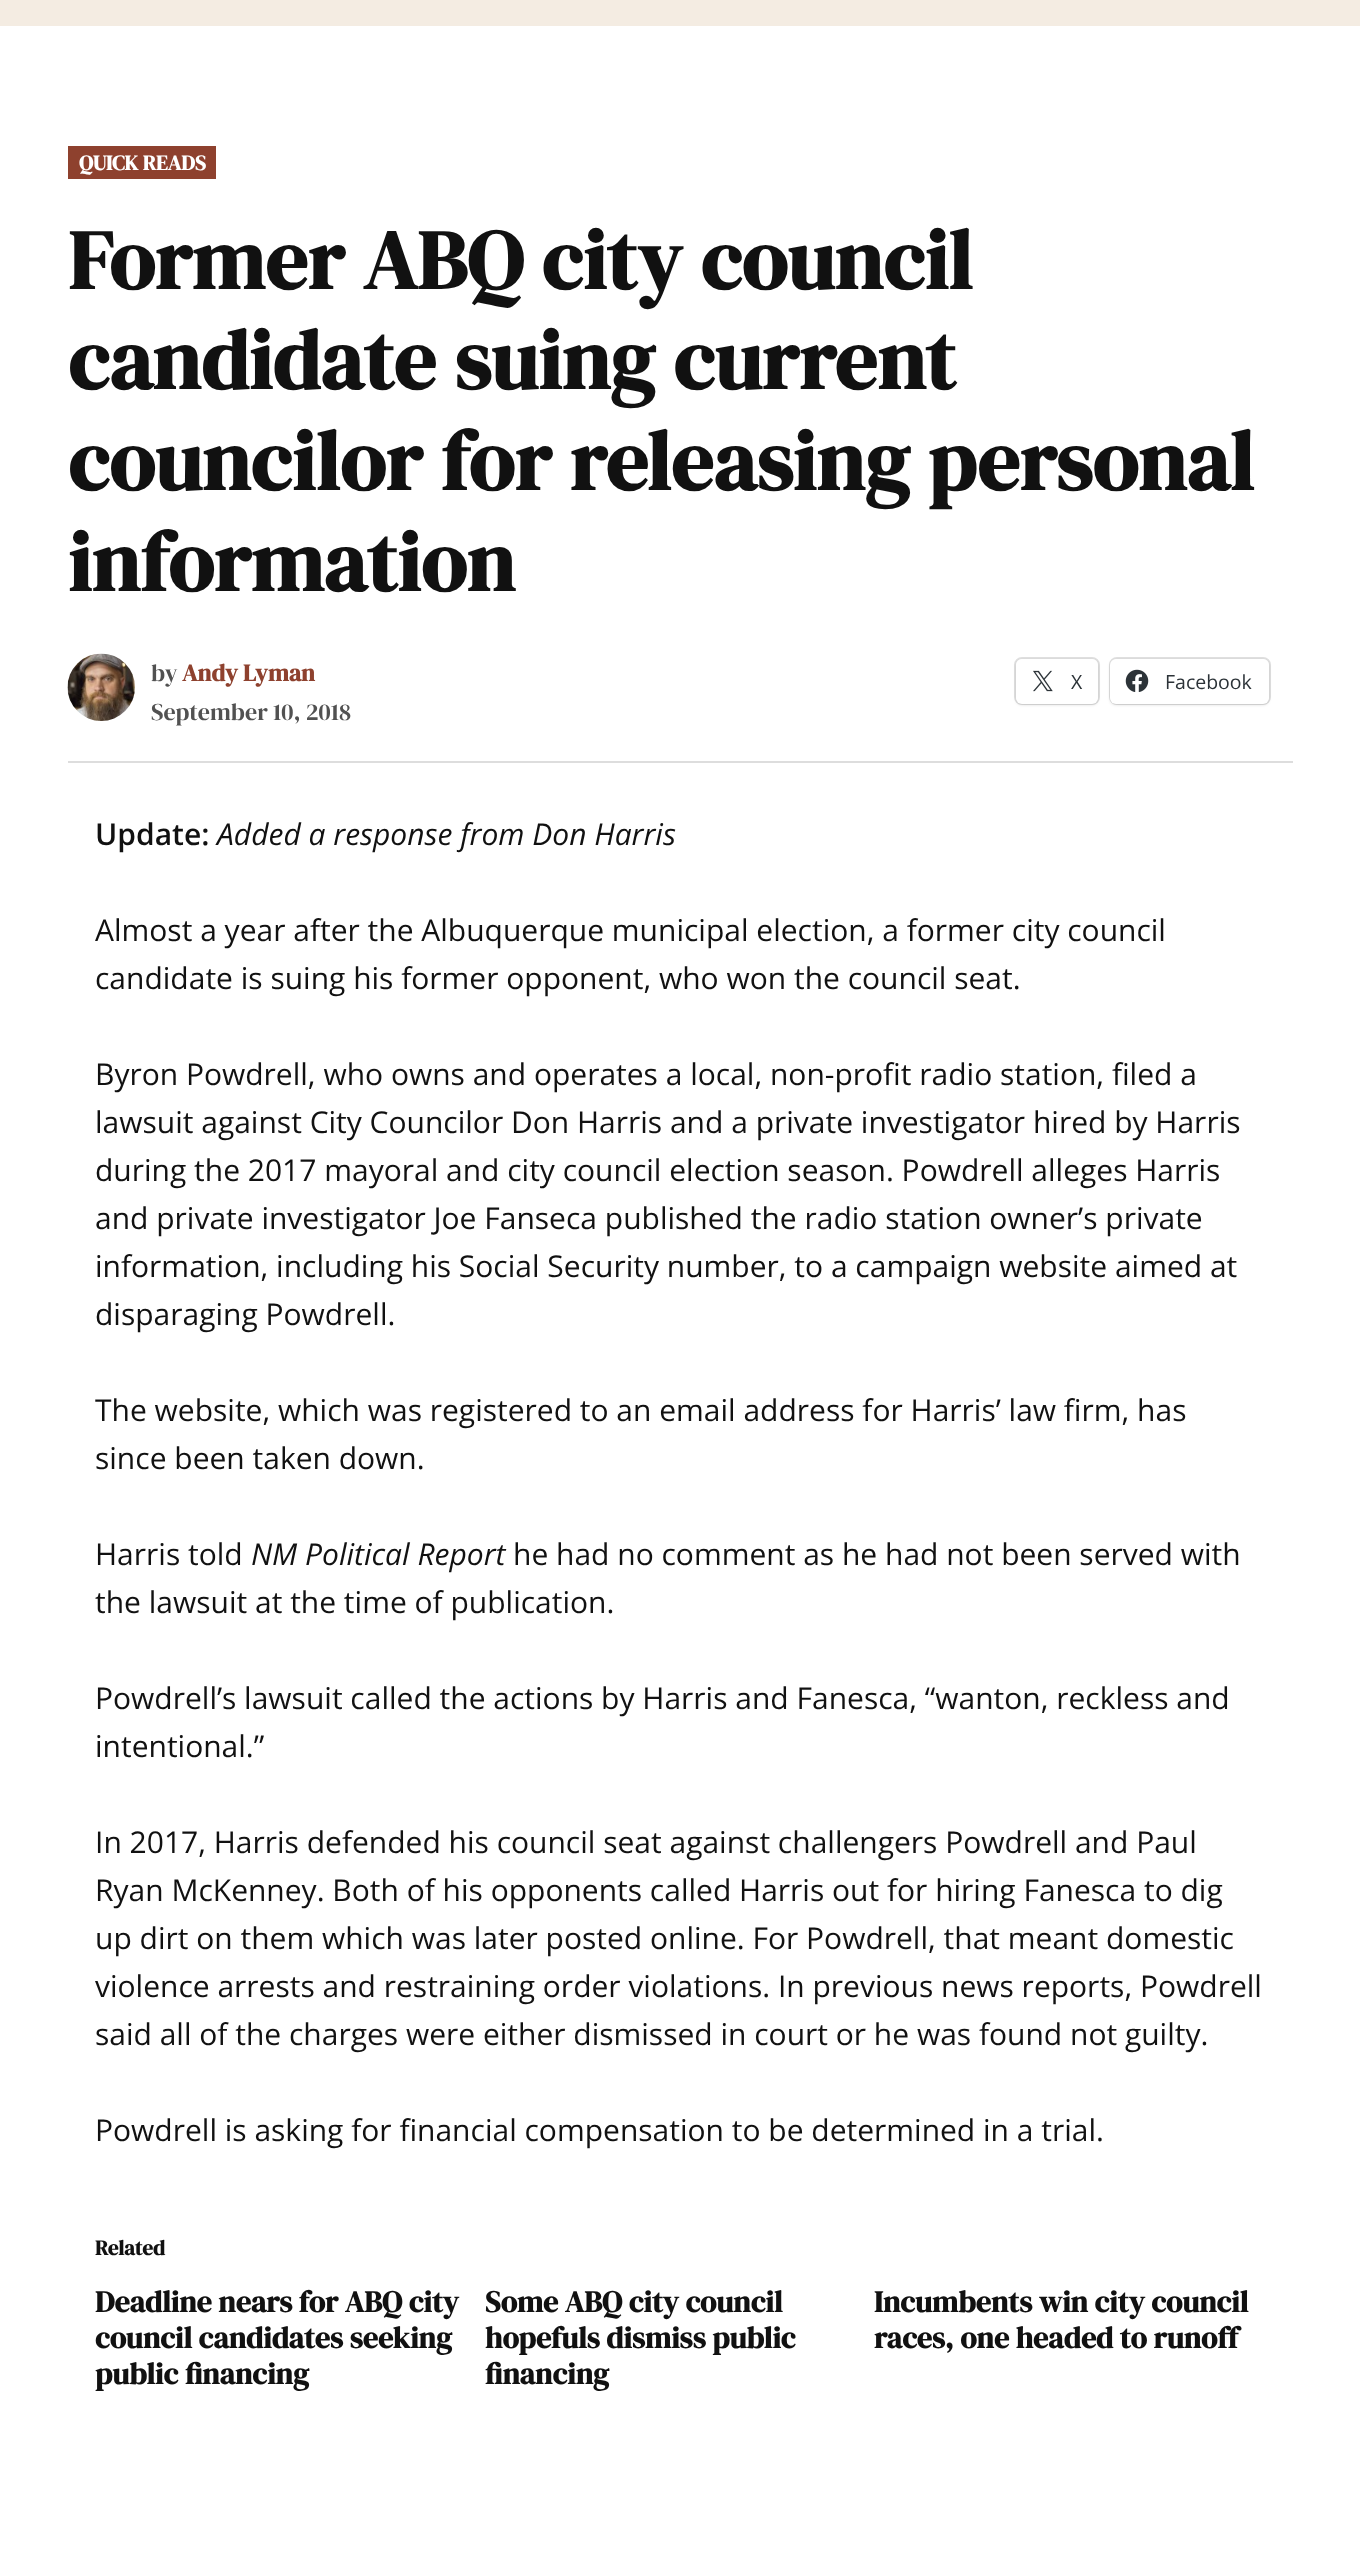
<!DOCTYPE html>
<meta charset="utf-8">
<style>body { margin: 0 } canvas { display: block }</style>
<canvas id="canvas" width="1360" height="2552"></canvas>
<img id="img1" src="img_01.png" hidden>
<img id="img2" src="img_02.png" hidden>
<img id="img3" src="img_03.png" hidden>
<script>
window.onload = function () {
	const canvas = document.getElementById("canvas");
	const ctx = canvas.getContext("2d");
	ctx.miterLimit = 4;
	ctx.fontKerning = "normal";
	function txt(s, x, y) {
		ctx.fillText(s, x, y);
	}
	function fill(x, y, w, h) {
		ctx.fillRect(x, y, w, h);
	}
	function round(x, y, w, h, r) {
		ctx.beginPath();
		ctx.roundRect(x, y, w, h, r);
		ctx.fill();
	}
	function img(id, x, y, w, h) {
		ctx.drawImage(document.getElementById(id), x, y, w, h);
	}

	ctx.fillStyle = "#FFFFFF";
	fill(0, 0, 1360, 2552);
	ctx.fillStyle = "#F4ECE2";
	fill(0, 0, 1360, 26);
	ctx.fillStyle = "#DDDDDD";
	fill(68, 761, 1225, 2);
	ctx.fillStyle = "#8E412E";
	fill(68, 146, 148, 33);
	img("img1", 67, 653, 68, 68);
	ctx.beginPath();
	ctx.roundRect(1015, 658, 84, 46, 7);
	ctx.strokeStyle = "#E0E0E0";
	ctx.lineWidth = 2;
	ctx.stroke();
	ctx.fillStyle = "rgba(0, 0, 0, 0.12)";
	ctx.filter = "blur(1.5px)";
	ctx.beginPath();
	ctx.roundRect(1016, 660, 82, 45, 6);
	ctx.fill();
	ctx.filter = "none";
	ctx.fillStyle = "#FFFFFF";
	round(1016, 659, 82, 45, 6);
	img("img2", 1033, 670, 20, 22);
	ctx.beginPath();
	ctx.roundRect(1110, 658, 160, 46, 7);
	ctx.stroke();
	ctx.fillStyle = "rgba(0, 0, 0, 0.12)";
	ctx.filter = "blur(1.5px)";
	ctx.beginPath();
	ctx.roundRect(1110, 660, 159, 45, 6);
	ctx.fill();
	ctx.filter = "none";
	ctx.fillStyle = "#FFFFFF";
	round(1110, 659, 159, 45, 6);
	img("img3", 1125, 669, 24, 23);
	ctx.font = "bold 21px DM Serif Display";
	txt("QUICK READS", 79, 170);
	ctx.font = "bold 84px DM Serif Display";
	ctx.fillStyle = "#111111";
	txt("Former ABQ city council", 68, 289);
	txt("candidate suing current", 68, 389);
	txt("councilor for releasing personal", 68, 490);
	txt("information", 68, 591);
	ctx.font = "24px DM Serif Display";
	ctx.fillStyle = "#515151";
	txt("by", 151, 681);
	ctx.font = "bold 24px DM Serif Display";
	ctx.fillStyle = "#8E412E";
	txt("Andy Lyman", 182, 681);
	ctx.font = "24px DM Serif Display";
	ctx.fillStyle = "#515151";
	txt("September 10, 2018", 151, 720);
	ctx.font = "19.5px Open Sans";
	ctx.fillStyle = "#2C3338";
	txt("X", 1071, 689);
	txt("Facebook", 1165, 689);
	ctx.font = "600 30px Open Sans";
	ctx.fillStyle = "#111111";
	txt("Update:", 95, 845);
	ctx.font = "italic 30px Open Sans";
	txt("Added a response from Don Harris", 217, 845);
	ctx.font = "30px Open Sans";
	txt("Almost a year after the Albuquerque municipal election, a former city council", 95, 941);
	txt("candidate is suing his former opponent, who won the council seat.", 95, 989);
	txt("Byron Powdrell, who owns and operates a local, non-profit radio station, filed a", 95, 1085);
	txt("lawsuit against City Councilor Don Harris and a private investigator hired by Harris", 95, 1133);
	txt("during the 2017 mayoral and city council election season. Powdrell alleges Harris", 95, 1181);
	txt("and private investigator Joe Fanseca published the radio station owner’s private", 95, 1229);
	txt("information, including his Social Security number, to a campaign website aimed at", 95, 1277);
	txt("disparaging Powdrell.", 95, 1325);
	txt("The website, which was registered to an email address for Harris’ law firm, has", 95, 1421);
	txt("since been taken down.", 95, 1469);
	txt("Harris told", 95, 1565);
	ctx.font = "italic 30px Open Sans";
	txt("NM Political Report", 251, 1565);
	ctx.font = "30px Open Sans";
	txt("he had no comment as he had not been served with", 513, 1565);
	txt("the lawsuit at the time of publication.", 95, 1613);
	txt("Powdrell’s lawsuit called the actions by Harris and Fanesca, “wanton, reckless and", 95, 1709);
	txt("intentional.”", 95, 1757);
	txt("In 2017, Harris defended his council seat against challengers Powdrell and Paul", 95, 1853);
	txt("Ryan McKenney. Both of his opponents called Harris out for hiring Fanesca to dig", 95, 1901);
	txt("up dirt on them which was later posted online. For Powdrell, that meant domestic", 95, 1949);
	txt("violence arrests and restraining order violations. In previous news reports, Powdrell", 95, 1997);
	txt("said all of the charges were either dismissed in court or he was found not guilty.", 95, 2045);
	txt("Powdrell is asking for financial compensation to be determined in a trial.", 95, 2141);
	ctx.font = "bold 21px DM Serif Display";
	txt("Related", 95, 2255);
	ctx.font = "bold 30px DM Serif Display";
	txt("Deadline nears for ABQ city", 95, 2312);
	txt("council candidates seeking", 95, 2348);
	txt("public financing", 95, 2384);
	txt("Some ABQ city council", 485, 2312);
	txt("hopefuls dismiss public", 485, 2348);
	txt("financing", 485, 2384);
	txt("Incumbents win city council", 874, 2312);
	txt("races, one headed to runoff", 874, 2348);
};
</script>
